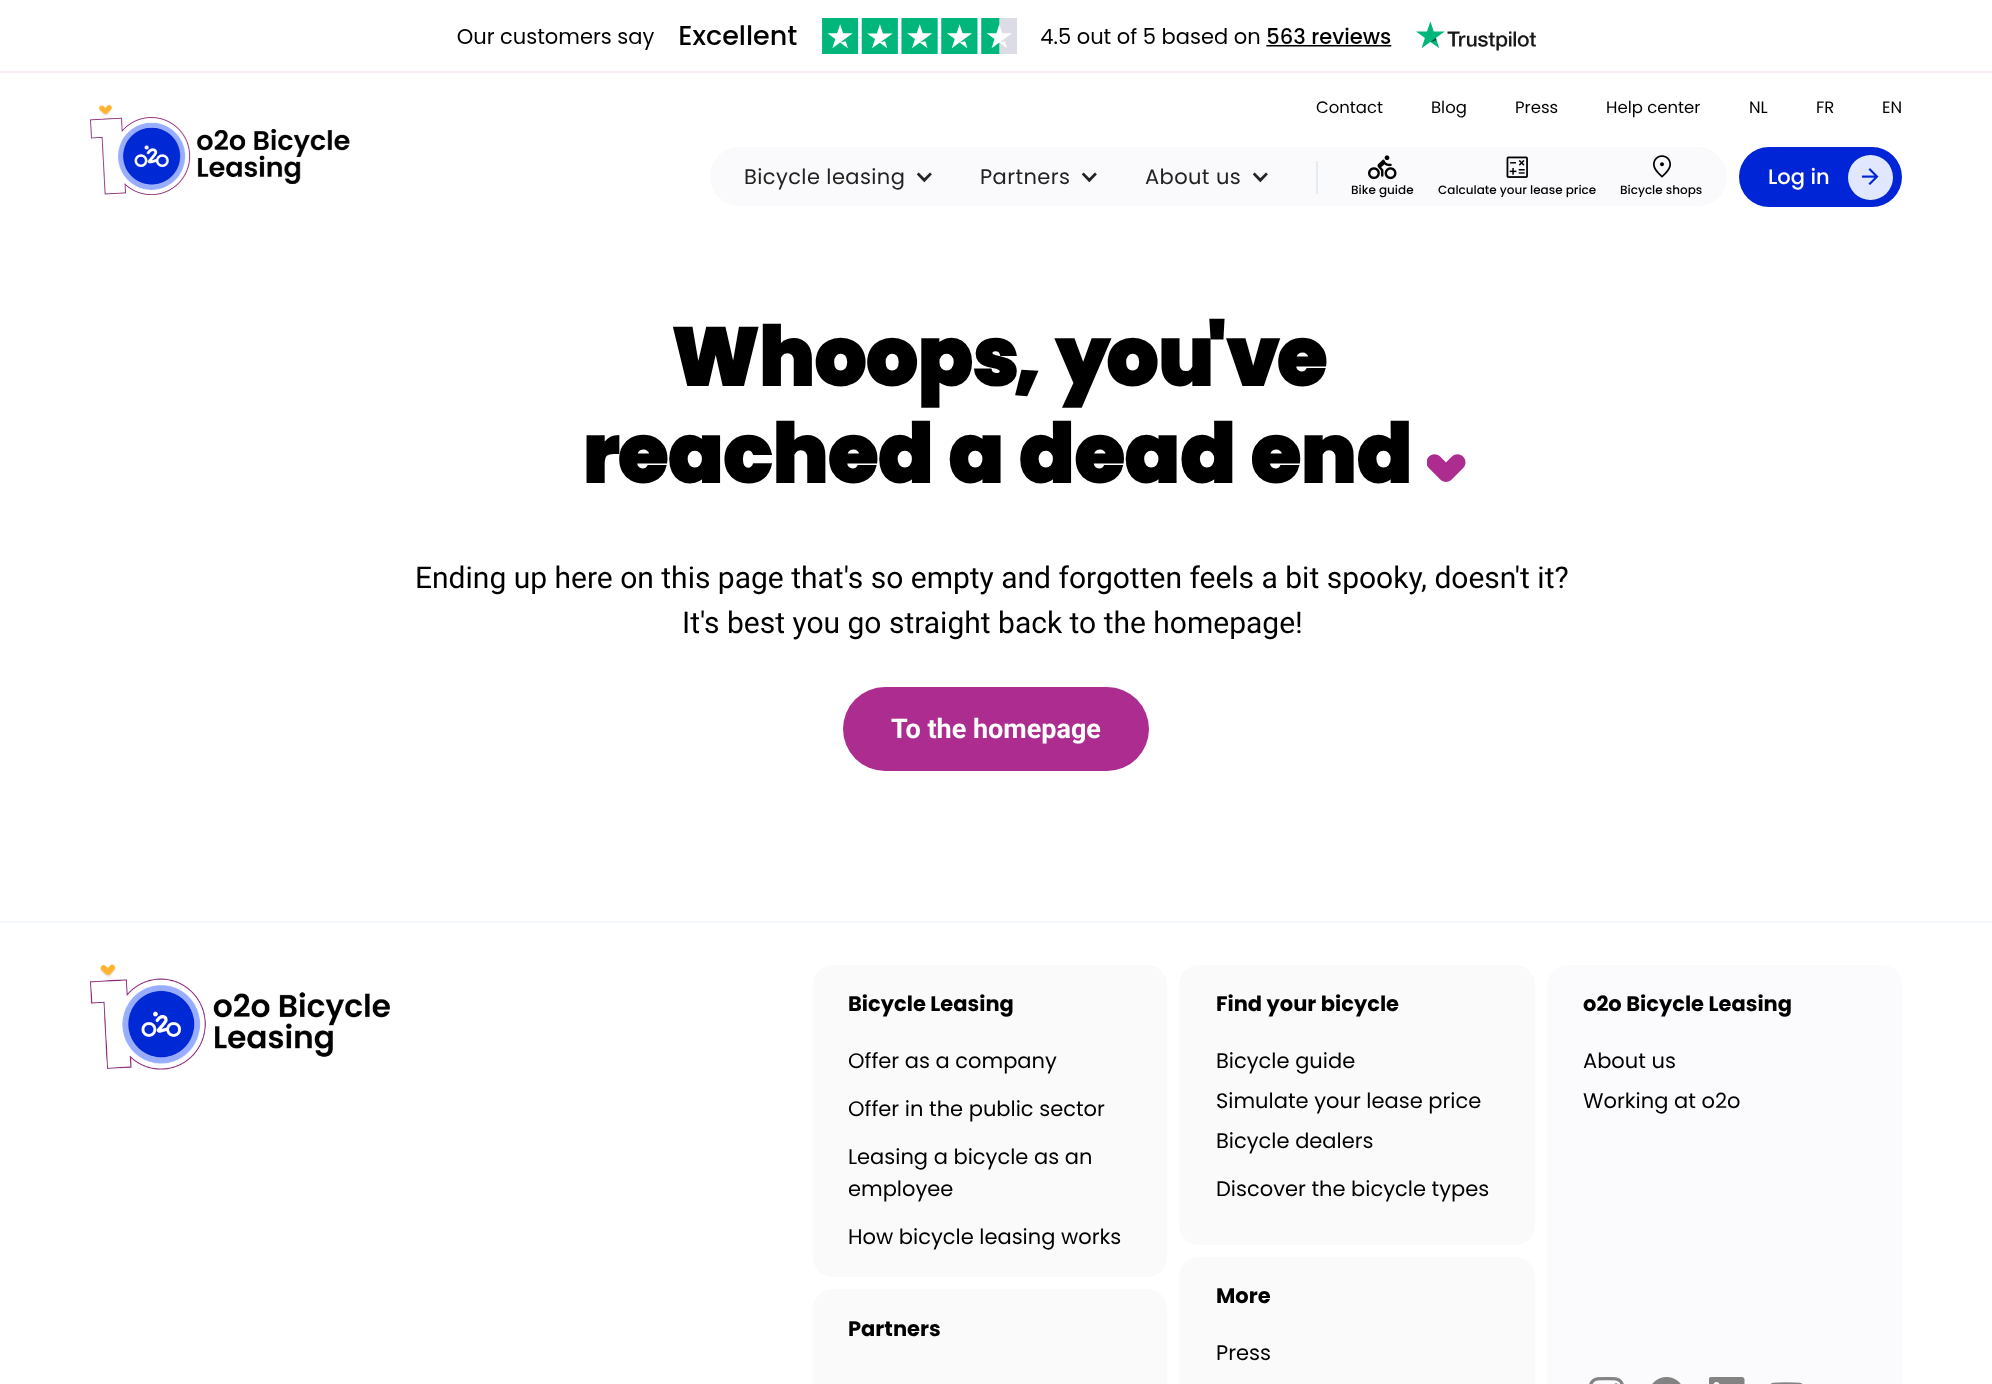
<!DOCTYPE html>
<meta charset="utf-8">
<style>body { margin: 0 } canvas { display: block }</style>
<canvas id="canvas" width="1992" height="1384"></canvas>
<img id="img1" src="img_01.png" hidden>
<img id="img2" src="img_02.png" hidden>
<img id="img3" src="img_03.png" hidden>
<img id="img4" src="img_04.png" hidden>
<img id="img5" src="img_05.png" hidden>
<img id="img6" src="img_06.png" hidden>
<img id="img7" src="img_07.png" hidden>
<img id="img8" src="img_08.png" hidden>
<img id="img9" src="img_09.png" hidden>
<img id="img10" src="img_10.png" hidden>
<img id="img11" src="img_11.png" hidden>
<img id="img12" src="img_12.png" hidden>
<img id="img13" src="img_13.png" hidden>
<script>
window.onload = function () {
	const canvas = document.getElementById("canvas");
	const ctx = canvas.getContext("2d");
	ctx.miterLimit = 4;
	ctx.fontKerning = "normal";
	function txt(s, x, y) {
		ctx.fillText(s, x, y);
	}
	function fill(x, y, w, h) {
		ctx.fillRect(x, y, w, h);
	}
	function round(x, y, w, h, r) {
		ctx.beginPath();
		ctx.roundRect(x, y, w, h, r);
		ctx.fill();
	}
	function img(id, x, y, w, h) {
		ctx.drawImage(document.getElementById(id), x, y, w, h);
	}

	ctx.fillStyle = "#FFFFFF";
	fill(0, 0, 1992, 1384);
	ctx.fillStyle = "#F9EDF7";
	fill(0, 71, 1992, 2);
	img("img1", 457, 18, 1079, 36);
	img("img2", 90, 105, 260, 90);
	ctx.fillStyle = "#FAF9FB";
	round(710, 147, 1017, 59, 29.5);
	img("img3", 916, 172, 16, 11);
	img("img3", 1081, 172, 16, 11);
	img("img3", 1252, 172, 16, 11);
	ctx.fillStyle = "#E4EBF3";
	fill(1316, 161, 2, 33);
	img("img4", 1368, 155, 29, 25);
	img("img5", 1506, 156, 22, 22);
	img("img6", 1653, 155, 18, 23);
	ctx.fillStyle = "#0025D7";
	round(1739, 147, 163, 60, 30);
	ctx.fillStyle = "#E1E7FF";
	ctx.beginPath();
	ctx.arc(1870.5, 177.5, 22.5, 0, Math.PI * 2);
	ctx.fill();
	img("img7", 1862, 168, 17, 17);
	img("img8", 1427, 454, 39, 28);
	ctx.fillStyle = "#AD2C90";
	round(843, 687, 306, 84, 42);
	ctx.fillStyle = "#F3F5FF";
	fill(0, 921, 1992, 2);
	img("img9", 90, 964, 300, 106);
	ctx.fillStyle = "#FBFAFB";
	round(813, 965, 354, 312, 20);
	round(813, 1289, 354, 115, 20);
	round(1179, 965, 356, 280, 20);
	round(1179, 1257, 356, 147, 20);
	ctx.fillStyle = "#FBFAFC";
	round(1547, 965, 355, 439, 20);
	img("img10", 1589, 1377, 35, 7);
	img("img11", 1652, 1377, 29, 7);
	img("img12", 1709, 1377, 36, 7);
	img("img13", 1770, 1382, 33, 2);
	ctx.font = "16.5px Poppins";
	ctx.fillStyle = "#000000";
	txt("Contact", 1316, 113);
	txt("Blog", 1431, 113);
	txt("Press", 1515, 113);
	txt("Help center", 1606, 113);
	txt("NL", 1749, 113);
	txt("FR", 1816, 113);
	txt("EN", 1882, 113);
	ctx.letterSpacing = "0.4px";
	ctx.font = "21px Poppins";
	ctx.fillStyle = "#222222";
	txt("Bicycle leasing", 744, 184);
	txt("Partners", 980, 184);
	txt("About us", 1145, 184);
	ctx.letterSpacing = "0px";
	ctx.font = "500 12px Poppins";
	ctx.fillStyle = "#000000";
	txt("Bike guide", 1351, 194);
	txt("Calculate your lease price", 1438, 194);
	txt("Bicycle shops", 1620, 194);
	ctx.font = "500 21px Poppins";
	ctx.fillStyle = "#FFFFFF";
	txt("Log in", 1768, 184);
	ctx.wordSpacing = "1px";
	ctx.font = "bold 81px 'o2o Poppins'";
	ctx.fillStyle = "#000000";
	txt("Whoops, you've", 671, 386);
	ctx.wordSpacing = "0px";
	txt("reached a dead end", 582, 483);
	ctx.font = "30px Roboto";
	txt("Ending up here on this page that's so empty and forgotten feels a bit spooky, doesn't it?", 415, 588);
	txt("It's best you go straight back to the homepage!", 682, 633);
	ctx.font = "bold 27px Roboto";
	ctx.fillStyle = "#FFFFFF";
	txt("To the homepage", 891, 738);
	ctx.font = "bold 21px Poppins";
	ctx.fillStyle = "#000000";
	txt("Bicycle Leasing", 848, 1011);
	ctx.font = "21px Poppins";
	txt("Offer as a company", 848, 1068);
	txt("Offer in the public sector", 848, 1116);
	txt("Leasing a bicycle as an", 848, 1164);
	txt("employee", 848, 1196);
	txt("How bicycle leasing works", 848, 1244);
	ctx.font = "bold 21px Poppins";
	txt("Partners", 848, 1336);
	txt("Find your bicycle", 1216, 1011);
	ctx.font = "21px Poppins";
	txt("Bicycle guide", 1216, 1068);
	txt("Simulate your lease price", 1216, 1108);
	txt("Bicycle dealers", 1216, 1148);
	txt("Discover the bicycle types", 1216, 1196);
	ctx.font = "bold 21px Poppins";
	txt("More", 1216, 1303);
	ctx.font = "21px Poppins";
	txt("Press", 1216, 1360);
	ctx.font = "bold 21px Poppins";
	txt("o2o Bicycle Leasing", 1583, 1011);
	ctx.font = "21px Poppins";
	txt("About us", 1583, 1068);
	txt("Working at o2o", 1583, 1108);
};
</script>
